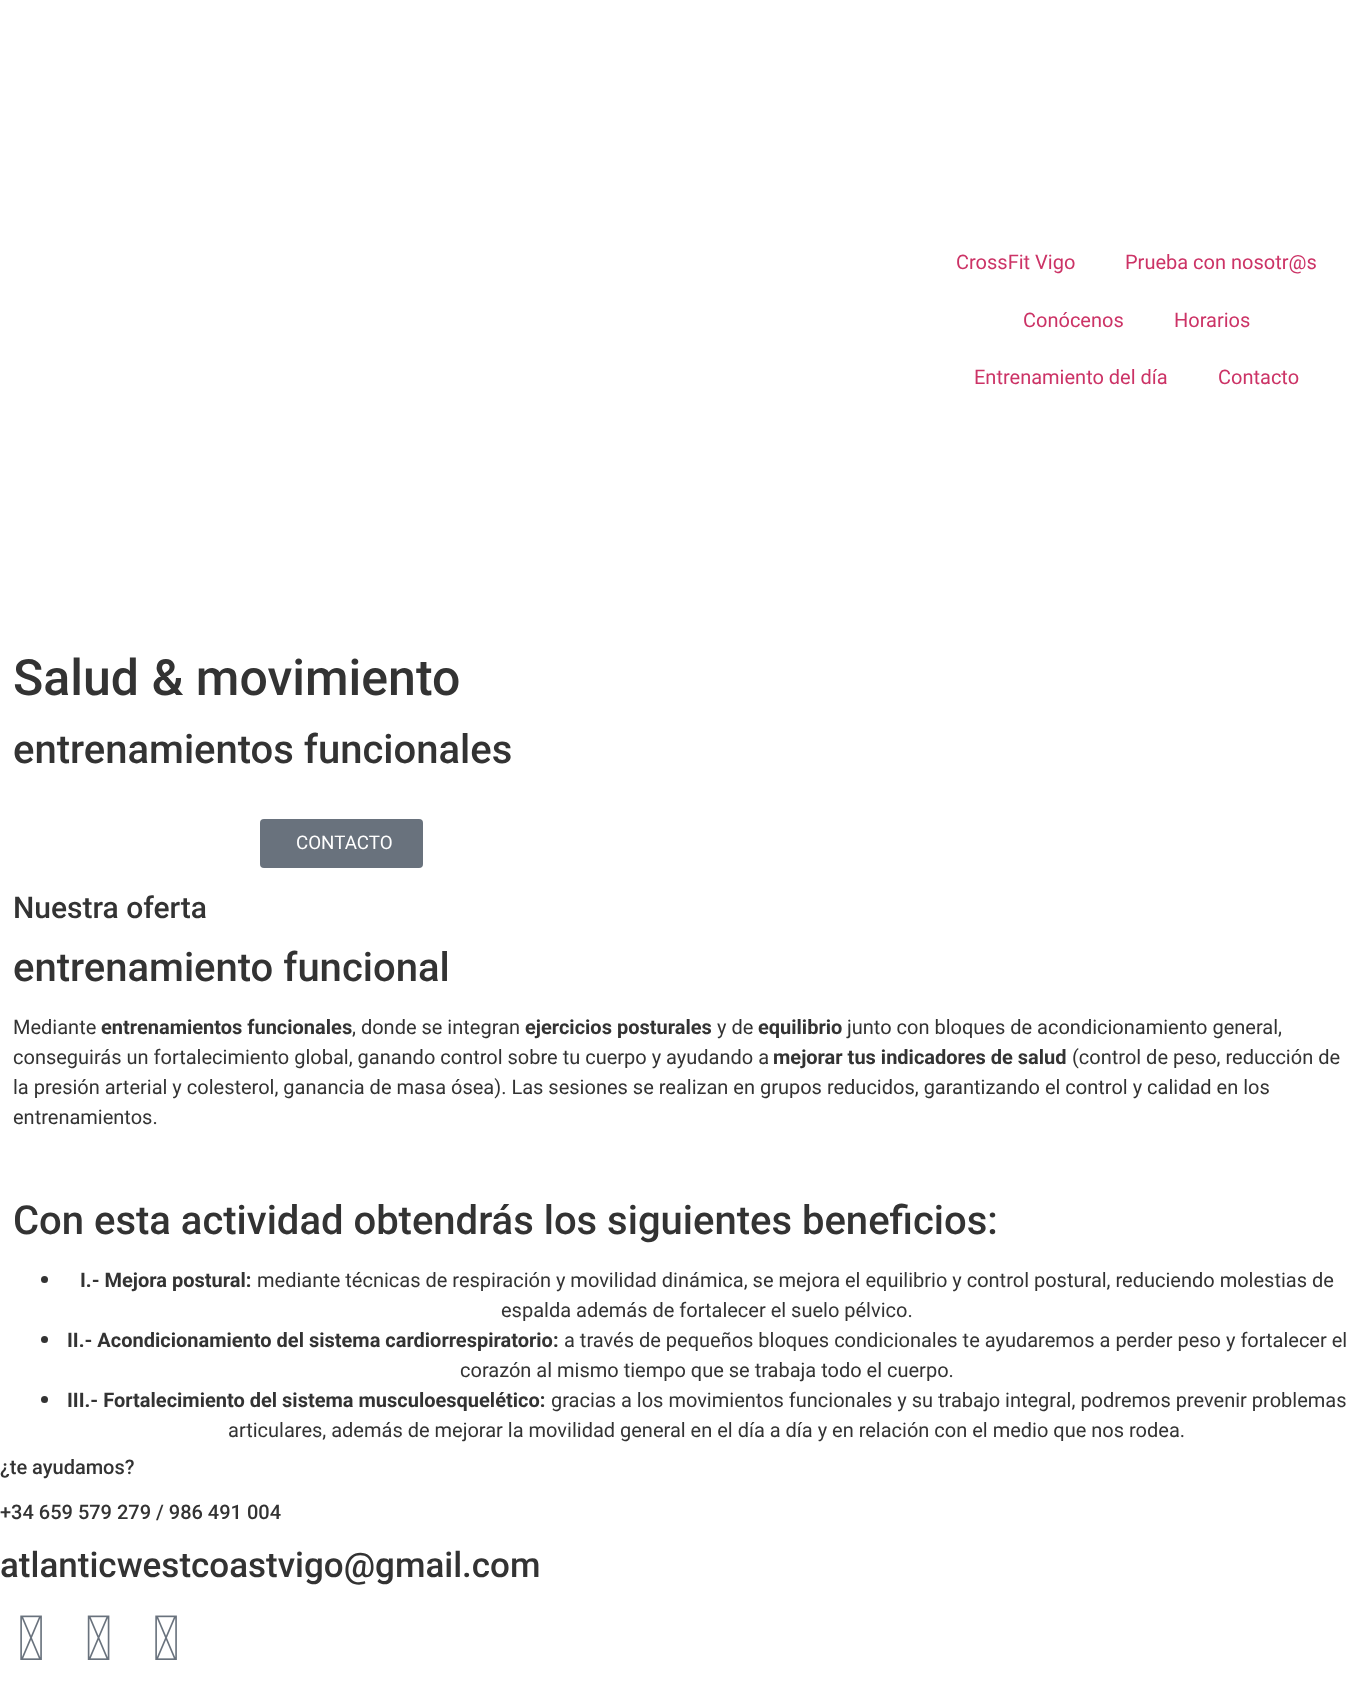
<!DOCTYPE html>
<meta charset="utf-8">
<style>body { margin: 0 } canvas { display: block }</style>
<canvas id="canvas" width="1363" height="1702"></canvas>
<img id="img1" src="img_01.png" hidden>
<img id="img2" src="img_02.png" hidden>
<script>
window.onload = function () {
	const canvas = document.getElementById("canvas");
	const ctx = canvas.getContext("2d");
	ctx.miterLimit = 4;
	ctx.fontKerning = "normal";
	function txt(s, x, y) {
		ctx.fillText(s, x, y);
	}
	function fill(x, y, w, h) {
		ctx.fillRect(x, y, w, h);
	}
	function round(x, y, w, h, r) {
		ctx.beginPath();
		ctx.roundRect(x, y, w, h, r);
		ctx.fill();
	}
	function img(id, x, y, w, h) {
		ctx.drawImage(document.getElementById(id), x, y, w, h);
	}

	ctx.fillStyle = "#FFFFFF";
	fill(0, 0, 1363, 1702);
	ctx.fillStyle = "#69727D";
	round(260, 819, 163, 49, 4);
	ctx.fillStyle = "#333333";
	ctx.beginPath();
	ctx.arc(44.5, 1279.5, 3.5, 0, Math.PI * 2);
	ctx.fill();
	ctx.beginPath();
	ctx.arc(44.5, 1339.5, 3.5, 0, Math.PI * 2);
	ctx.fill();
	ctx.beginPath();
	ctx.arc(44.5, 1399.5, 3.5, 0, Math.PI * 2);
	ctx.fill();
	img("img1", 20, 1615, 22, 45);
	img("img2", 87, 1615, 23, 45);
	img("img1", 155, 1615, 22, 45);
	ctx.font = "20px Roboto";
	ctx.fillStyle = "#CC3366";
	txt("CrossFit Vigo", 956, 269);
	txt("Prueba con nosotr@s", 1125, 269);
	txt("Conócenos", 1023, 327);
	txt("Horarios", 1174, 327);
	txt("Entrenamiento del día", 974, 384);
	txt("Contacto", 1218, 384);
	ctx.font = "500 50px Roboto";
	ctx.fillStyle = "#333333";
	txt("Salud & movimiento", 13, 695);
	ctx.font = "500 40px Roboto";
	txt("entrenamientos funcionales", 13, 763);
	ctx.font = "18.75px Roboto";
	ctx.fillStyle = "#FFFFFF";
	txt("CONTACTO", 296, 849);
	ctx.font = "500 30px Roboto";
	ctx.fillStyle = "#333333";
	txt("Nuestra oferta", 13, 918);
	ctx.font = "500 40px Roboto";
	txt("entrenamiento funcional", 13, 981);
	ctx.font = "20px Roboto";
	txt("Mediante", 13, 1034);
	ctx.font = "bold 20px Roboto";
	txt("entrenamientos funcionales", 101, 1034);
	ctx.font = "20px Roboto";
	txt(", donde se integran", 352, 1034);
	ctx.font = "bold 20px Roboto";
	txt("ejercicios posturales", 525, 1034);
	ctx.font = "20px Roboto";
	txt("y de", 717, 1034);
	ctx.font = "bold 20px Roboto";
	txt("equilibrio", 758, 1034);
	ctx.font = "20px Roboto";
	txt("junto con bloques de acondicionamiento general,", 847, 1034);
	txt("conseguirás un fortalecimiento global, ganando control sobre tu cuerpo y ayudando a", 13, 1064);
	ctx.font = "bold 20px Roboto";
	txt("mejorar tus indicadores de salud", 773, 1064);
	ctx.font = "20px Roboto";
	txt("(control de peso, reducción de", 1072, 1064);
	txt("la presión arterial y colesterol, ganancia de masa ósea). Las sesiones se realizan en grupos reducidos, garantizando el control y calidad en los", 13, 1094);
	txt("entrenamientos.", 13, 1124);
	ctx.font = "500 40px Roboto";
	txt("Con esta actividad obtendrás los siguientes beneficios:", 13, 1234);
	ctx.font = "bold 20px Roboto";
	txt("I.- Mejora postural:", 80, 1287);
	ctx.font = "20px Roboto";
	txt("mediante técnicas de respiración y movilidad dinámica, se mejora el equilibrio y control postural, reduciendo molestias de", 257, 1287);
	txt("espalda además de fortalecer el suelo pélvico.", 501, 1317);
	ctx.font = "bold 20px Roboto";
	txt("II.- Acondicionamiento del sistema cardiorrespiratorio:", 67, 1347);
	ctx.font = "20px Roboto";
	txt("a través de pequeños bloques condicionales te ayudaremos a perder peso y fortalecer el", 564, 1347);
	txt("corazón al mismo tiempo que se trabaja todo el cuerpo.", 460, 1377);
	ctx.font = "bold 20px Roboto";
	txt("III.- Fortalecimiento del sistema musculoesquelético:", 67, 1407);
	ctx.font = "20px Roboto";
	txt("gracias a los movimientos funcionales y su trabajo integral, podremos prevenir problemas", 551, 1407);
	txt("articulares, además de mejorar la movilidad general en el día a día y en relación con el medio que nos rodea.", 228, 1437);
	ctx.font = "500 20px Roboto";
	txt("¿te ayudamos?", 0, 1474);
	txt("+34 659 579 279 / 986 491 004", 0, 1519);
	ctx.font = "500 35px Roboto";
	txt("atlanticwestcoastvigo@gmail.com", 0, 1577);
};
</script>
